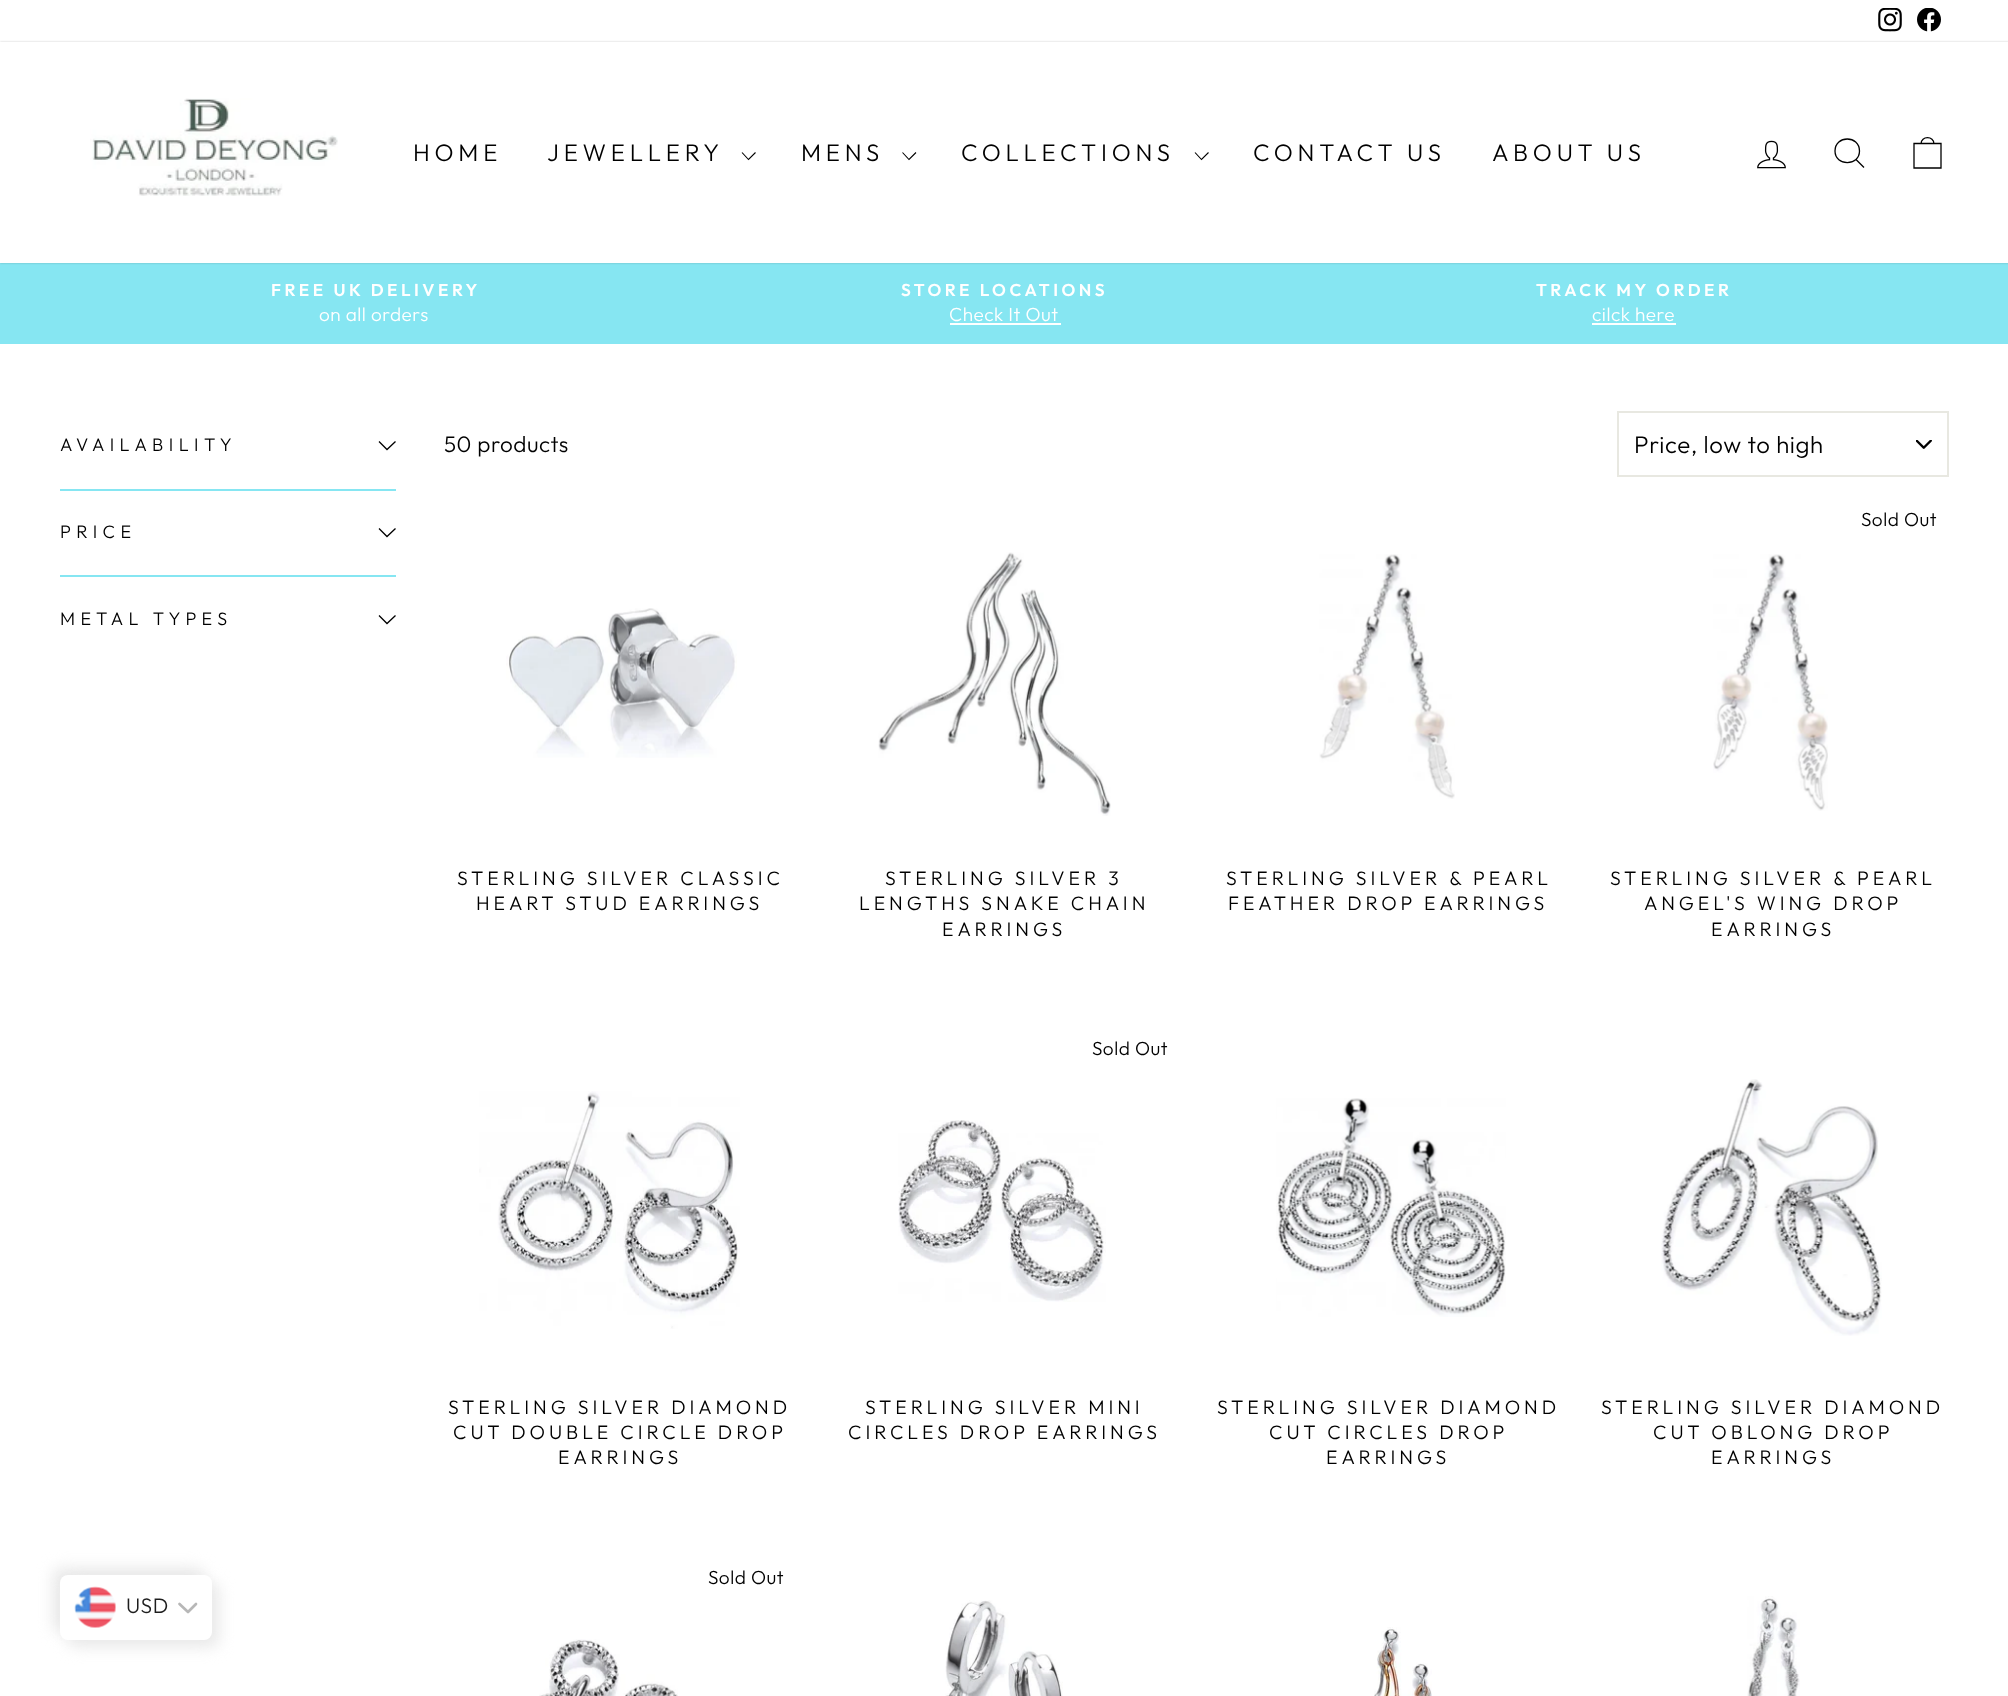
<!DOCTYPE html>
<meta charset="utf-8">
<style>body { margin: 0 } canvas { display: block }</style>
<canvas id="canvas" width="2008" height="1696"></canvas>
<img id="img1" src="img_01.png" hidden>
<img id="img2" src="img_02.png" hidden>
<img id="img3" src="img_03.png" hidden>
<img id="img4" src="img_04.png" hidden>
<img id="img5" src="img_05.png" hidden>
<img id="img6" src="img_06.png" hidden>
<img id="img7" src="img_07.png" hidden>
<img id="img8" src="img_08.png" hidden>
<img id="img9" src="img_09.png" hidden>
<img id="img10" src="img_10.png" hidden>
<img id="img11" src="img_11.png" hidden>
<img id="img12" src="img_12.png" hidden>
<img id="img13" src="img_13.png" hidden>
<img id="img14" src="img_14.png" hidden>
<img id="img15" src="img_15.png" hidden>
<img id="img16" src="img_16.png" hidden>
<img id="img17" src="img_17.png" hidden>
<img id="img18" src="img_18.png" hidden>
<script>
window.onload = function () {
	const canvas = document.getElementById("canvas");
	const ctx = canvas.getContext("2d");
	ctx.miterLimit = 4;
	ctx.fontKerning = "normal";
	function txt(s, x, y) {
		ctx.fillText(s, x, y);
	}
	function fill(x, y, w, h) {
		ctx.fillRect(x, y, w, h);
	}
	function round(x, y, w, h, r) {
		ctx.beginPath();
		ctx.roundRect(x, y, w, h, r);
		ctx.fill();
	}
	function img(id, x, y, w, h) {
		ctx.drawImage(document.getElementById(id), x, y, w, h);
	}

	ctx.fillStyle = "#FFFFFF";
	fill(0, 0, 2008, 1696);
	img("img1", 1878, 8, 24, 24);
	img("img2", 1917, 8, 24, 24);
	ctx.fillStyle = "#86E6F2";
	fill(0, 263, 2008, 81);
	ctx.fillStyle = "rgba(0, 0, 0, 0.2)";
	ctx.filter = "blur(1px)";
	ctx.beginPath();
	ctx.rect(0, 42, 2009, 221);
	ctx.fill();
	ctx.filter = "none";
	ctx.fillStyle = "#FFFFFF";
	fill(0, 42, 2008, 221);
	img("img3", 90, 98, 248, 98);
	ctx.beginPath();
	ctx.moveTo(742, 152.5);
	ctx.lineTo(748.5, 159.5);
	ctx.lineTo(755.5, 152.5);
	ctx.strokeStyle = "#000000";
	ctx.lineWidth = 1.1;
	ctx.stroke();
	ctx.beginPath();
	ctx.moveTo(902.5, 152.5);
	ctx.lineTo(909, 159.5);
	ctx.lineTo(916, 152.5);
	ctx.stroke();
	ctx.beginPath();
	ctx.moveTo(1195, 152.5);
	ctx.lineTo(1201.5, 159.5);
	ctx.lineTo(1208.5, 152.5);
	ctx.stroke();
	img("img4", 1757, 140, 29, 29);
	ctx.beginPath();
	ctx.moveTo(1859.5, 151);
	ctx.bezierCurveTo(1859.5, 166.5, 1835, 166.5, 1835, 151);
	ctx.bezierCurveTo(1835, 135, 1859.5, 135, 1859.5, 151);
	ctx.closePath();
	ctx.moveTo(1864, 167.5);
	ctx.lineTo(1856, 159.5);
	ctx.lineWidth = 1.3;
	ctx.stroke();
	ctx.beginPath();
	ctx.moveTo(1914, 143.5);
	ctx.lineTo(1941, 143.5);
	ctx.lineTo(1941, 168);
	ctx.lineTo(1914, 168);
	ctx.closePath();
	ctx.moveTo(1921, 144);
	ctx.bezierCurveTo(1921, 135.5, 1934, 135.5, 1934, 144);
	ctx.stroke();
	fill(950, 323, 111, 2);
	fill(1592, 323, 84, 2);
	ctx.beginPath();
	ctx.moveTo(379, 441.5);
	ctx.lineTo(387, 449.5);
	ctx.lineTo(395.5, 441.5);
	ctx.stroke();
	ctx.fillStyle = "#86E6F2";
	fill(60, 489, 336, 2);
	ctx.beginPath();
	ctx.moveTo(379, 528.5);
	ctx.lineTo(387, 536.5);
	ctx.lineTo(395.5, 528.5);
	ctx.stroke();
	fill(60, 575, 336, 2);
	ctx.beginPath();
	ctx.moveTo(379, 615.5);
	ctx.lineTo(387, 623.5);
	ctx.lineTo(395.5, 615.5);
	ctx.stroke();
	img("img5", 1916, 440, 16, 9);
	ctx.strokeStyle = "#E8E8E1";
	ctx.lineWidth = 2;
	ctx.strokeRect(1618, 412, 330, 64);
	img("img6", 506, 608, 231, 150);
	img("img7", 878, 552, 233, 264);
	img("img8", 1319, 554, 136, 245);
	img("img9", 1713, 554, 115, 257);
	img("img10", 479, 1091, 261, 238);
	img("img11", 898, 1120, 208, 182);
	img("img12", 1276, 1098, 230, 219);
	img("img13", 1661, 1079, 221, 257);
	img("img14", 539, 1639, 139, 57);
	img("img15", 945, 1600, 118, 96);
	img("img16", 1374, 1627, 58, 69);
	img("img17", 1747, 1596, 53, 100);
	ctx.fillStyle = "#E8E8E8";
	ctx.filter = "blur(7.5px)";
	ctx.beginPath();
	ctx.roundRect(53, 1568, 151, 64, 8);
	ctx.fill();
	ctx.filter = "none";
	ctx.filter = "blur(7.5px)";
	ctx.beginPath();
	ctx.roundRect(68, 1583, 151, 64, 8);
	ctx.fill();
	ctx.filter = "none";
	ctx.fillStyle = "#FFFFFF";
	round(60, 1575, 152, 65, 8);
	img("img18", 74, 1586, 42, 42);
	ctx.beginPath();
	ctx.moveTo(179.5, 1604);
	ctx.lineTo(188, 1612);
	ctx.lineTo(196, 1604);
	ctx.strokeStyle = "#B7B7B7";
	ctx.lineWidth = 2.7;
	ctx.lineCap = "round";
	ctx.lineJoin = "round";
	ctx.stroke();
	ctx.letterSpacing = "4.75px";
	ctx.font = "300 24px Outfit";
	ctx.fillStyle = "#000000";
	txt("HOME", 413, 161);
	txt("JEWELLERY", 547, 161);
	txt("MENS", 801, 161);
	txt("COLLECTIONS", 961, 161);
	txt("CONTACT US", 1253, 161);
	txt("ABOUT US", 1492, 161);
	ctx.letterSpacing = "3.5px";
	ctx.font = "600 17.25px Outfit";
	ctx.fillStyle = "#FFFFFF";
	txt("FREE UK DELIVERY", 271, 296);
	ctx.letterSpacing = "0.5px";
	ctx.font = "300 19px Outfit";
	txt("on all orders", 319, 321);
	ctx.letterSpacing = "3.5px";
	ctx.font = "600 17.25px Outfit";
	txt("STORE LOCATIONS", 901, 296);
	ctx.letterSpacing = "0.5px";
	ctx.font = "300 19px Outfit";
	txt("Check It Out", 949, 321);
	ctx.letterSpacing = "3.5px";
	ctx.font = "600 17.25px Outfit";
	txt("TRACK MY ORDER", 1536, 296);
	ctx.letterSpacing = "0.5px";
	ctx.font = "300 19px Outfit";
	txt("cilck here", 1592, 321);
	ctx.letterSpacing = "5.4px";
	ctx.font = "300 18px Outfit";
	ctx.fillStyle = "#000000";
	txt("AVAILABILITY", 60, 451);
	txt("PRICE", 60, 538);
	txt("METAL TYPES", 60, 625);
	ctx.letterSpacing = "0.5px";
	ctx.font = "300 22.5px Outfit";
	txt("50 products", 444, 452);
	ctx.letterSpacing = "0.6px";
	ctx.font = "300 24px Outfit";
	txt("Price, low to high", 1634, 453);
	ctx.letterSpacing = "3.9px";
	ctx.font = "300 19.5px Outfit";
	txt("STERLING SILVER CLASSIC", 457, 885);
	txt("HEART STUD EARRINGS", 476, 910);
	txt("STERLING SILVER 3", 885, 885);
	txt("LENGTHS SNAKE CHAIN", 859, 910);
	txt("EARRINGS", 942, 936);
	txt("STERLING SILVER & PEARL", 1226, 885);
	txt("FEATHER DROP EARRINGS", 1228, 910);
	ctx.letterSpacing = "0.5px";
	ctx.font = "300 19px Outfit";
	txt("Sold Out", 1861, 526);
	ctx.letterSpacing = "3.9px";
	ctx.font = "300 19.5px Outfit";
	txt("STERLING SILVER & PEARL", 1610, 885);
	txt("ANGEL'S WING DROP", 1644, 910);
	txt("EARRINGS", 1711, 936);
	txt("STERLING SILVER DIAMOND", 448, 1414);
	txt("CUT DOUBLE CIRCLE DROP", 453, 1439);
	txt("EARRINGS", 558, 1464);
	ctx.letterSpacing = "0.5px";
	ctx.font = "300 19px Outfit";
	txt("Sold Out", 1092, 1055);
	ctx.letterSpacing = "3.9px";
	ctx.font = "300 19.5px Outfit";
	txt("STERLING SILVER MINI", 865, 1414);
	txt("CIRCLES DROP EARRINGS", 848, 1439);
	txt("STERLING SILVER DIAMOND", 1217, 1414);
	txt("CUT CIRCLES DROP", 1269, 1439);
	txt("EARRINGS", 1326, 1464);
	txt("STERLING SILVER DIAMOND", 1601, 1414);
	txt("CUT OBLONG DROP", 1653, 1439);
	txt("EARRINGS", 1711, 1464);
	ctx.letterSpacing = "0.5px";
	ctx.font = "300 19px Outfit";
	txt("Sold Out", 708, 1584);
	ctx.font = "300 21px Outfit";
	ctx.fillStyle = "#1E1E1E";
	txt("USD", 126, 1613);
};
</script>
